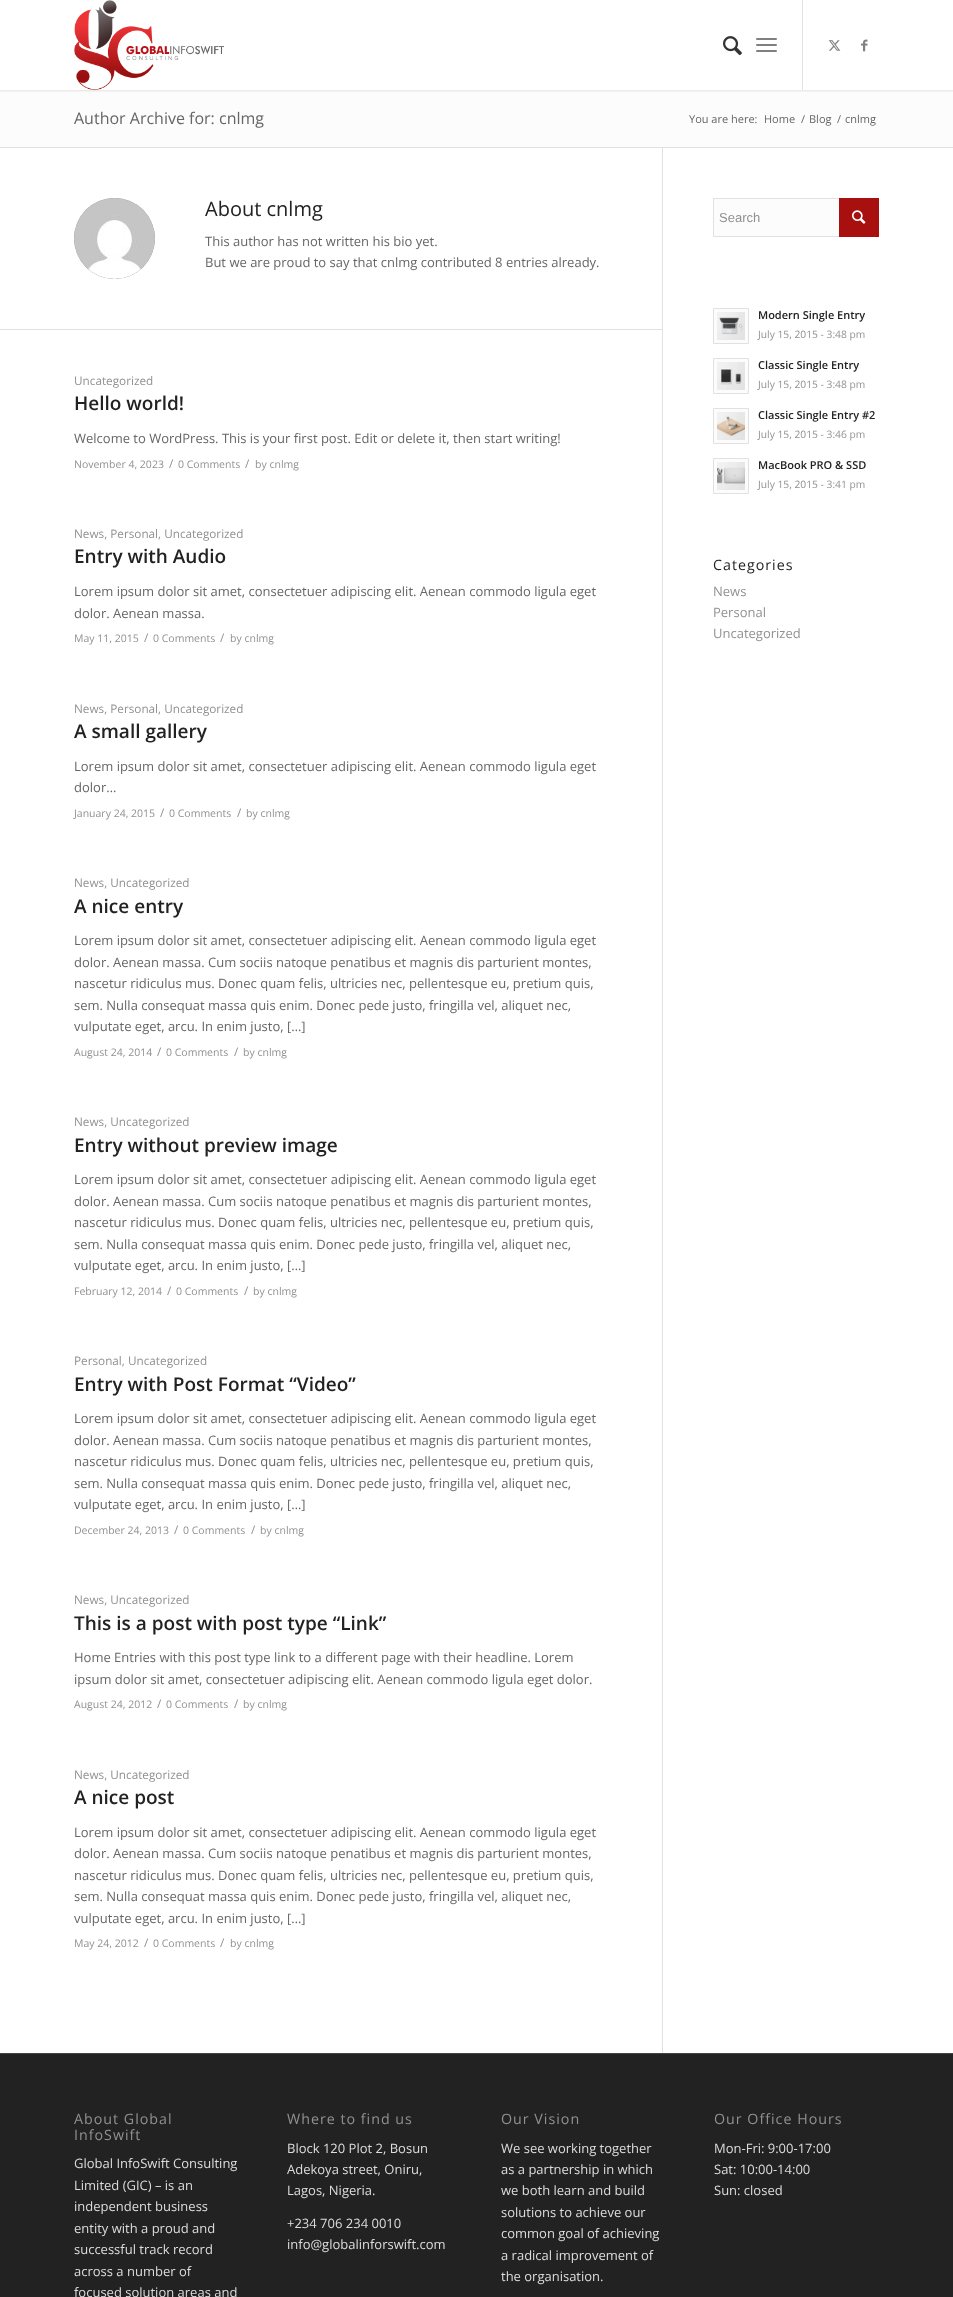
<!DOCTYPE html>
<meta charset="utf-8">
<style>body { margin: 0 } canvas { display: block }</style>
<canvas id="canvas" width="953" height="2297"></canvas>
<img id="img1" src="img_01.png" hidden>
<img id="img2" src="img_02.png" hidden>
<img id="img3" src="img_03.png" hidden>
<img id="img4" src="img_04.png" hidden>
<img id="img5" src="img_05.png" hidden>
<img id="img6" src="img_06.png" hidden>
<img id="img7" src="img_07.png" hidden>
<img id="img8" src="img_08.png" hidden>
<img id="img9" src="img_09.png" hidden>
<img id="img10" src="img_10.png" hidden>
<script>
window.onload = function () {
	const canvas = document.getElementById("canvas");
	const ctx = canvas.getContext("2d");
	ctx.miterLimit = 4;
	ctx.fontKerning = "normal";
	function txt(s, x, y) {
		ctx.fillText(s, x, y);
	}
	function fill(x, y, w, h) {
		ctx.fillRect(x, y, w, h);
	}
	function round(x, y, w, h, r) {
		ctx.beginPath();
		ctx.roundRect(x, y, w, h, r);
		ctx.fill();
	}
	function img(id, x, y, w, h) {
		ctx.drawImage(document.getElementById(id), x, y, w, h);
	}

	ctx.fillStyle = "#FFFFFF";
	fill(0, 0, 953, 2297);
	ctx.fillStyle = "#FCFCFC";
	fill(0, 90, 953, 57);
	ctx.save();
	ctx.beginPath();
	ctx.rect(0, 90, 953, 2);
	ctx.clip();
	ctx.fillStyle = "rgba(0, 0, 0, 0.1)";
	ctx.filter = "blur(1px)";
	ctx.beginPath();
	ctx.rect(-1, -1, 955, 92);
	ctx.fill();
	ctx.filter = "none";
	ctx.restore();
	img("img1", 74, 0, 150, 90);
	ctx.fillStyle = "#E1E1E1";
	fill(802, 0, 1, 90);
	img("img2", 723, 36, 19, 20);
	ctx.fillStyle = "#808080";
	round(756, 44, 21, 2, 1);
	round(756, 38, 21, 2, 1);
	round(756, 50, 21, 2, 1);
	img("img3", 828, 40, 13, 11);
	img("img4", 861, 39, 7, 13);
	ctx.fillStyle = "#E1E1E1";
	fill(0, 147, 953, 1);
	fill(662, 148, 1, 1905);
	ctx.fillStyle = "#919191";
	ctx.beginPath();
	ctx.arc(114.5, 238.5, 40.5, 0, Math.PI * 2);
	ctx.fill();
	img("img5", 74, 198, 81, 81);
	ctx.fillStyle = "#E1E1E1";
	fill(0, 329, 662, 1);
	ctx.fillStyle = "#FCFCFC";
	fill(714, 199, 125, 37);
	ctx.strokeStyle = "#E1E1E1";
	ctx.strokeRect(713.5, 198.5, 165, 38);
	ctx.fillStyle = "#A81010";
	fill(839, 198, 40, 39);
	img("img6", 852, 210, 14, 14);
	ctx.fillStyle = "#FCFCFC";
	ctx.beginPath();
	ctx.rect(713.5, 308.5, 35, 35);
	ctx.fill();
	ctx.stroke();
	img("img7", 717, 312, 28, 28);
	ctx.beginPath();
	ctx.rect(713.5, 358.5, 35, 35);
	ctx.fill();
	ctx.stroke();
	img("img8", 717, 362, 28, 28);
	ctx.beginPath();
	ctx.rect(713.5, 408.5, 35, 35);
	ctx.fill();
	ctx.stroke();
	img("img9", 717, 412, 28, 28);
	ctx.beginPath();
	ctx.rect(713.5, 458.5, 35, 35);
	ctx.fill();
	ctx.stroke();
	img("img10", 717, 462, 28, 28);
	ctx.fillStyle = "#222222";
	fill(0, 2054, 953, 243);
	ctx.fillStyle = "#444444";
	fill(0, 2053, 953, 1);
	ctx.font = "16px Open Sans";
	ctx.fillStyle = "#666666";
	txt("Author Archive for: cnlmg", 74, 124);
	ctx.font = "11px Open Sans";
	txt("You are here:", 689, 123);
	txt("Home", 764, 123);
	txt("/", 801, 123);
	txt("Blog", 809, 123);
	txt("/", 837, 123);
	txt("cnlmg", 845, 123);
	ctx.font = "20px Open Sans";
	ctx.fillStyle = "#222222";
	txt("About cnlmg", 205, 216);
	ctx.font = "13px Open Sans";
	ctx.fillStyle = "#666666";
	txt("This author has not written his bio yet.", 205, 246);
	txt("But we are proud to say that cnlmg contributed 8 entries already.", 205, 267);
	ctx.font = "11.75px Open Sans";
	ctx.fillStyle = "#919191";
	txt("Uncategorized", 74, 385);
	ctx.font = "600 19px Open Sans";
	ctx.fillStyle = "#222222";
	txt("Hello world!", 74, 410);
	ctx.font = "13px Open Sans";
	ctx.fillStyle = "#666666";
	txt("Welcome to WordPress. This is your first post. Edit or delete it, then start writing!", 74, 443);
	ctx.font = "10.5px Open Sans";
	ctx.fillStyle = "#919191";
	txt("November 4, 2023", 74, 468);
	ctx.font = "11.75px Open Sans";
	txt("/", 169, 468);
	ctx.font = "10.5px Open Sans";
	txt("0 Comments", 178, 468);
	ctx.font = "11.75px Open Sans";
	txt("/", 245, 468);
	ctx.font = "10.5px Open Sans";
	txt("by cnlmg", 255, 468);
	ctx.font = "11.75px Open Sans";
	txt("News, Personal, Uncategorized", 74, 538);
	ctx.font = "600 19px Open Sans";
	ctx.fillStyle = "#222222";
	txt("Entry with Audio", 74, 563);
	ctx.font = "13px Open Sans";
	ctx.fillStyle = "#666666";
	txt("Lorem ipsum dolor sit amet, consectetuer adipiscing elit. Aenean commodo ligula eget", 74, 596);
	txt("dolor. Aenean massa.", 74, 618);
	ctx.font = "10.5px Open Sans";
	ctx.fillStyle = "#919191";
	txt("May 11, 2015", 74, 642);
	ctx.font = "11.75px Open Sans";
	txt("/", 144, 642);
	ctx.font = "10.5px Open Sans";
	txt("0 Comments", 153, 642);
	ctx.font = "11.75px Open Sans";
	txt("/", 220, 642);
	ctx.font = "10.5px Open Sans";
	txt("by cnlmg", 230, 642);
	ctx.font = "11.75px Open Sans";
	txt("News, Personal, Uncategorized", 74, 713);
	ctx.font = "600 19px Open Sans";
	ctx.fillStyle = "#222222";
	txt("A small gallery", 74, 738);
	ctx.font = "13px Open Sans";
	ctx.fillStyle = "#666666";
	txt("Lorem ipsum dolor sit amet, consectetuer adipiscing elit. Aenean commodo ligula eget", 74, 771);
	txt("dolor…", 74, 792);
	ctx.font = "10.5px Open Sans";
	ctx.fillStyle = "#919191";
	txt("January 24, 2015", 74, 817);
	ctx.font = "11.75px Open Sans";
	txt("/", 160, 817);
	ctx.font = "10.5px Open Sans";
	txt("0 Comments", 169, 817);
	ctx.font = "11.75px Open Sans";
	txt("/", 237, 817);
	ctx.font = "10.5px Open Sans";
	txt("by cnlmg", 246, 817);
	ctx.font = "11.75px Open Sans";
	txt("News, Uncategorized", 74, 887);
	ctx.font = "600 19px Open Sans";
	ctx.fillStyle = "#222222";
	txt("A nice entry", 74, 913);
	ctx.font = "13px Open Sans";
	ctx.fillStyle = "#666666";
	txt("Lorem ipsum dolor sit amet, consectetuer adipiscing elit. Aenean commodo ligula eget", 74, 945);
	txt("dolor. Aenean massa. Cum sociis natoque penatibus et magnis dis parturient montes,", 74, 967);
	txt("nascetur ridiculus mus. Donec quam felis, ultricies nec, pellentesque eu, pretium quis,", 74, 988);
	txt("sem. Nulla consequat massa quis enim. Donec pede justo, fringilla vel, aliquet nec,", 74, 1010);
	txt("vulputate eget, arcu. In enim justo, […]", 74, 1031);
	ctx.font = "10.5px Open Sans";
	ctx.fillStyle = "#919191";
	txt("August 24, 2014", 74, 1056);
	ctx.font = "11.75px Open Sans";
	txt("/", 157, 1056);
	ctx.font = "10.5px Open Sans";
	txt("0 Comments", 166, 1056);
	ctx.font = "11.75px Open Sans";
	txt("/", 234, 1056);
	ctx.font = "10.5px Open Sans";
	txt("by cnlmg", 243, 1056);
	ctx.font = "11.75px Open Sans";
	txt("News, Uncategorized", 74, 1126);
	ctx.font = "600 19px Open Sans";
	ctx.fillStyle = "#222222";
	txt("Entry without preview image", 74, 1152);
	ctx.font = "13px Open Sans";
	ctx.fillStyle = "#666666";
	txt("Lorem ipsum dolor sit amet, consectetuer adipiscing elit. Aenean commodo ligula eget", 74, 1184);
	txt("dolor. Aenean massa. Cum sociis natoque penatibus et magnis dis parturient montes,", 74, 1206);
	txt("nascetur ridiculus mus. Donec quam felis, ultricies nec, pellentesque eu, pretium quis,", 74, 1227);
	txt("sem. Nulla consequat massa quis enim. Donec pede justo, fringilla vel, aliquet nec,", 74, 1249);
	txt("vulputate eget, arcu. In enim justo, […]", 74, 1270);
	ctx.font = "10.5px Open Sans";
	ctx.fillStyle = "#919191";
	txt("February 12, 2014", 74, 1295);
	ctx.font = "11.75px Open Sans";
	txt("/", 167, 1295);
	ctx.font = "10.5px Open Sans";
	txt("0 Comments", 176, 1295);
	ctx.font = "11.75px Open Sans";
	txt("/", 244, 1295);
	ctx.font = "10.5px Open Sans";
	txt("by cnlmg", 253, 1295);
	ctx.font = "11.75px Open Sans";
	txt("Personal, Uncategorized", 74, 1365);
	ctx.font = "600 19px Open Sans";
	ctx.fillStyle = "#222222";
	txt("Entry with Post Format “Video”", 74, 1391);
	ctx.font = "13px Open Sans";
	ctx.fillStyle = "#666666";
	txt("Lorem ipsum dolor sit amet, consectetuer adipiscing elit. Aenean commodo ligula eget", 74, 1423);
	txt("dolor. Aenean massa. Cum sociis natoque penatibus et magnis dis parturient montes,", 74, 1445);
	txt("nascetur ridiculus mus. Donec quam felis, ultricies nec, pellentesque eu, pretium quis,", 74, 1466);
	txt("sem. Nulla consequat massa quis enim. Donec pede justo, fringilla vel, aliquet nec,", 74, 1488);
	txt("vulputate eget, arcu. In enim justo, […]", 74, 1509);
	ctx.font = "10.5px Open Sans";
	ctx.fillStyle = "#919191";
	txt("December 24, 2013", 74, 1534);
	ctx.font = "11.75px Open Sans";
	txt("/", 174, 1534);
	ctx.font = "10.5px Open Sans";
	txt("0 Comments", 183, 1534);
	ctx.font = "11.75px Open Sans";
	txt("/", 251, 1534);
	ctx.font = "10.5px Open Sans";
	txt("by cnlmg", 260, 1534);
	ctx.font = "11.75px Open Sans";
	txt("News, Uncategorized", 74, 1604);
	ctx.font = "600 19px Open Sans";
	ctx.fillStyle = "#222222";
	txt("This is a post with post type “Link”", 74, 1630);
	ctx.font = "13px Open Sans";
	ctx.fillStyle = "#666666";
	txt("Home Entries with this post type link to a different page with their headline. Lorem", 74, 1662);
	txt("ipsum dolor sit amet, consectetuer adipiscing elit. Aenean commodo ligula eget dolor.", 74, 1684);
	ctx.font = "10.5px Open Sans";
	ctx.fillStyle = "#919191";
	txt("August 24, 2012", 74, 1708);
	ctx.font = "11.75px Open Sans";
	txt("/", 157, 1708);
	ctx.font = "10.5px Open Sans";
	txt("0 Comments", 166, 1708);
	ctx.font = "11.75px Open Sans";
	txt("/", 234, 1708);
	ctx.font = "10.5px Open Sans";
	txt("by cnlmg", 243, 1708);
	ctx.font = "11.75px Open Sans";
	txt("News, Uncategorized", 74, 1779);
	ctx.font = "600 19px Open Sans";
	ctx.fillStyle = "#222222";
	txt("A nice post", 74, 1804);
	ctx.font = "13px Open Sans";
	ctx.fillStyle = "#666666";
	txt("Lorem ipsum dolor sit amet, consectetuer adipiscing elit. Aenean commodo ligula eget", 74, 1837);
	txt("dolor. Aenean massa. Cum sociis natoque penatibus et magnis dis parturient montes,", 74, 1858);
	txt("nascetur ridiculus mus. Donec quam felis, ultricies nec, pellentesque eu, pretium quis,", 74, 1880);
	txt("sem. Nulla consequat massa quis enim. Donec pede justo, fringilla vel, aliquet nec,", 74, 1901);
	txt("vulputate eget, arcu. In enim justo, […]", 74, 1923);
	ctx.font = "10.5px Open Sans";
	ctx.fillStyle = "#919191";
	txt("May 24, 2012", 74, 1947);
	ctx.font = "11.75px Open Sans";
	txt("/", 144, 1947);
	ctx.font = "10.5px Open Sans";
	txt("0 Comments", 153, 1947);
	ctx.font = "11.75px Open Sans";
	txt("/", 220, 1947);
	ctx.font = "10.5px Open Sans";
	txt("by cnlmg", 230, 1947);
	ctx.font = "13px Liberation Sans";
	txt("Search", 719, 222);
	ctx.font = "600 11px Open Sans";
	ctx.fillStyle = "#222222";
	txt("Modern Single Entry", 758, 319);
	ctx.font = "10.25px Open Sans";
	ctx.fillStyle = "#919191";
	txt("July 15, 2015 - 3:48 pm", 758, 338);
	ctx.font = "600 11px Open Sans";
	ctx.fillStyle = "#222222";
	txt("Classic Single Entry", 758, 369);
	ctx.font = "10.25px Open Sans";
	ctx.fillStyle = "#919191";
	txt("July 15, 2015 - 3:48 pm", 758, 388);
	ctx.font = "600 11px Open Sans";
	ctx.fillStyle = "#222222";
	txt("Classic Single Entry #2", 758, 419);
	ctx.font = "10.25px Open Sans";
	ctx.fillStyle = "#919191";
	txt("July 15, 2015 - 3:46 pm", 758, 438);
	ctx.font = "600 11px Open Sans";
	ctx.fillStyle = "#222222";
	txt("MacBook PRO & SSD", 758, 469);
	ctx.font = "10.25px Open Sans";
	ctx.fillStyle = "#919191";
	txt("July 15, 2015 - 3:41 pm", 758, 488);
	ctx.letterSpacing = "1px";
	ctx.font = "14.25px Open Sans";
	ctx.fillStyle = "#222222";
	txt("Categories", 713, 570);
	ctx.letterSpacing = "0px";
	ctx.font = "13px Open Sans";
	ctx.fillStyle = "#919191";
	txt("News", 713, 596);
	txt("Personal", 713, 617);
	txt("Uncategorized", 713, 638);
	ctx.letterSpacing = "1px";
	ctx.font = "14.25px Open Sans";
	txt("About Global", 74, 2124);
	txt("InfoSwift", 74, 2140);
	ctx.letterSpacing = "0px";
	ctx.font = "13px Open Sans";
	ctx.fillStyle = "#DDDDDD";
	txt("Global InfoSwift Consulting", 74, 2168);
	txt("Limited (GIC) – is an", 74, 2190);
	txt("independent business", 74, 2211);
	txt("entity with a proud and", 74, 2233);
	txt("successful track record", 74, 2254);
	txt("across a number of", 74, 2276);
	txt("focused solution areas and", 74, 2297);
	ctx.letterSpacing = "1px";
	ctx.font = "14.25px Open Sans";
	ctx.fillStyle = "#919191";
	txt("Where to find us", 287, 2124);
	ctx.letterSpacing = "0px";
	ctx.font = "13px Open Sans";
	ctx.fillStyle = "#DDDDDD";
	txt("Block 120 Plot 2, Bosun", 287, 2153);
	txt("Adekoya street, Oniru,", 287, 2174);
	txt("Lagos, Nigeria.", 287, 2195);
	txt("+234 706 234 0010", 287, 2228);
	txt("info@globalinforswift.com", 287, 2249);
	ctx.letterSpacing = "1px";
	ctx.font = "14.25px Open Sans";
	ctx.fillStyle = "#919191";
	txt("Our Vision", 501, 2124);
	ctx.letterSpacing = "0px";
	ctx.font = "13px Open Sans";
	ctx.fillStyle = "#DDDDDD";
	txt("We see working together", 501, 2153);
	txt("as a partnership in which", 501, 2174);
	txt("we both learn and build", 501, 2195);
	txt("solutions to achieve our", 501, 2217);
	txt("common goal of achieving", 501, 2238);
	txt("a radical improvement of", 501, 2260);
	txt("the organisation.", 501, 2281);
	ctx.letterSpacing = "1px";
	ctx.font = "14.25px Open Sans";
	ctx.fillStyle = "#919191";
	txt("Our Office Hours", 714, 2124);
	ctx.letterSpacing = "0px";
	ctx.font = "13px Open Sans";
	ctx.fillStyle = "#DDDDDD";
	txt("Mon-Fri: 9:00-17:00", 714, 2153);
	txt("Sat: 10:00-14:00", 714, 2174);
	txt("Sun: closed", 714, 2195);
};
</script>
